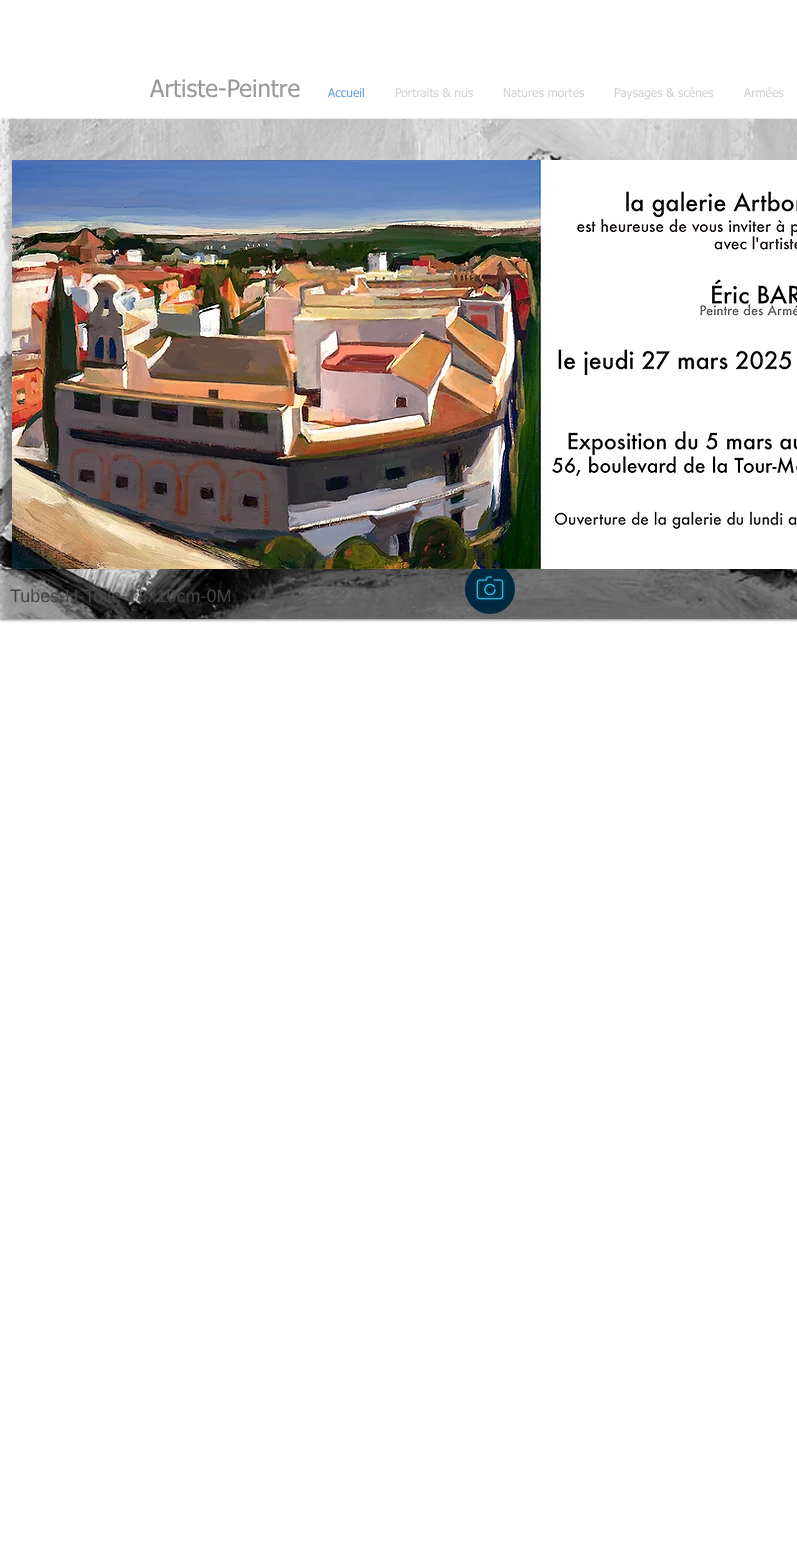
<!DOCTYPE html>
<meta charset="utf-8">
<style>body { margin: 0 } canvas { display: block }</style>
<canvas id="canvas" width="797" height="1557"></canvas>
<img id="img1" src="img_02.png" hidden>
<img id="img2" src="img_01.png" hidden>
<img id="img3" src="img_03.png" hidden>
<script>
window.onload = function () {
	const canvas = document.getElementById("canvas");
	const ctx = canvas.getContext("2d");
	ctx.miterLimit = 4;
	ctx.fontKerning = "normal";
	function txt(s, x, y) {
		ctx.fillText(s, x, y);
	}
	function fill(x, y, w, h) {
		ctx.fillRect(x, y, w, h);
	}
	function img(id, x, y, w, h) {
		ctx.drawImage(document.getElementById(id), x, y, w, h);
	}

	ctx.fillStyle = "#FFFFFF";
	fill(0, 0, 797, 1557);
	ctx.fillStyle = "rgba(0, 0, 0, 0.5)";
	ctx.filter = "blur(1.5px)";
	ctx.beginPath();
	ctx.rect(0, 120, 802, 500);
	ctx.fill();
	ctx.filter = "none";
	img("img1", 0, 119, 797, 500);
	img("img2", 12, 160, 785, 409);
	img("img3", 465, 569, 50, 45);
	ctx.font = "24px tahoma";
	ctx.fillStyle = "#999999";
	txt("Artiste-Peintre", 150, 97);
	ctx.font = "12px tahoma";
	ctx.fillStyle = "#6AA1DE";
	txt("Accueil", 328, 97);
	ctx.fillStyle = "#D2D2D2";
	txt("Portraits & nus", 395, 97);
	txt("Natures mortes", 503, 97);
	txt("Paysages & scènes", 614, 97);
	txt("Armées", 744, 97);
	ctx.font = "18px Liberation Sans";
	ctx.fillStyle = "#454545";
	txt("Tubes-H-Toile-18x10cm-0M", 10, 602);
};
</script>
